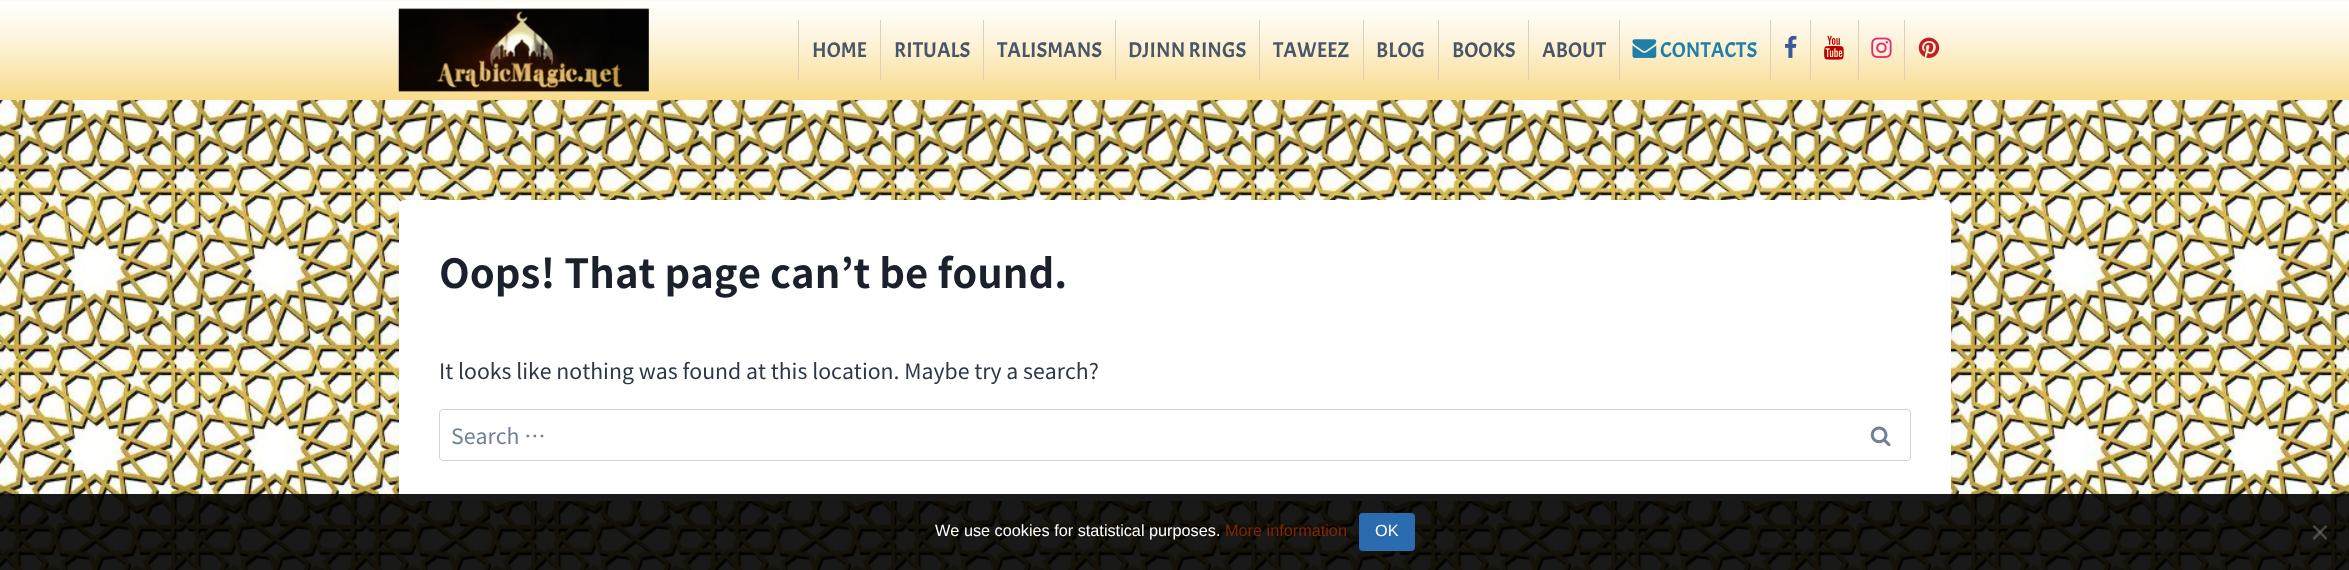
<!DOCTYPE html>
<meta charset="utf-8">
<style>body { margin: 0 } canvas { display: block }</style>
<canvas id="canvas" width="2349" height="570"></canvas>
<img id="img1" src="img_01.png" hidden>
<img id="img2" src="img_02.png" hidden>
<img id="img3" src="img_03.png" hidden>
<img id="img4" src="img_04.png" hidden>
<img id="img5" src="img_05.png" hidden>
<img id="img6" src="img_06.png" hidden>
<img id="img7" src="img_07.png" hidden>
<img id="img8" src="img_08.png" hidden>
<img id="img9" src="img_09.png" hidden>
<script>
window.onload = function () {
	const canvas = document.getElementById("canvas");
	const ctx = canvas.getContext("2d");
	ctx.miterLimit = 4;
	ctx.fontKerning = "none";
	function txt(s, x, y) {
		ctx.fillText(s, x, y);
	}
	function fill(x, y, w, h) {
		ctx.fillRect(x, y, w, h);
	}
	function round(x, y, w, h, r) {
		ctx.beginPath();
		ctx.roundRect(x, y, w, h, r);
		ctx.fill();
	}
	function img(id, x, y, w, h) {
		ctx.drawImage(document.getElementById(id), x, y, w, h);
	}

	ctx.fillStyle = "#FFFFFF";
	fill(0, 0, 2349, 570);
	img("img1", 0, 100, 2349, 470);
	img("img2", 0, 0, 2349, 100);
	img("img3", 398, 8, 251, 84);
	ctx.fillStyle = "#DFCFB4";
	fill(798, 20, 1, 60);
	fill(880, 20, 1, 60);
	fill(983, 20, 1, 60);
	fill(1115, 20, 1, 60);
	fill(1259, 20, 1, 60);
	fill(1363, 20, 1, 60);
	fill(1438, 20, 1, 60);
	fill(1528, 20, 1, 60);
	fill(1619, 20, 1, 60);
	img("img4", 1632, 39, 25, 19);
	fill(1770, 20, 1, 60);
	img("img5", 1785, 35, 12, 23);
	fill(1810, 20, 1, 60);
	img("img6", 1824, 35, 20, 25);
	fill(1858, 20, 1, 60);
	img("img7", 1871, 37, 21, 21);
	fill(1904, 20, 1, 60);
	img("img8", 1918, 37, 22, 21);
	ctx.fillStyle = "rgba(0, 0, 0, 0.05)";
	ctx.filter = "blur(15.5px)";
	ctx.beginPath();
	ctx.rect(411, 231, 1528, 277);
	ctx.fill();
	ctx.filter = "none";
	ctx.fillStyle = "#FFFFFF";
	round(399, 200, 1552, 301, 5);
	ctx.beginPath();
	ctx.roundRect(439.5, 409.5, 1471, 51, 3.5);
	ctx.strokeStyle = "#CBD5E0";
	ctx.stroke();
	img("img9", 1870, 426, 21, 20);
	ctx.fillStyle = "rgba(0, 0, 0, 0.9)";
	fill(0, 494, 2349, 76);
	ctx.fillStyle = "#2B6CB0";
	round(1359, 513, 56, 38, 4);
	ctx.fillStyle = "rgba(128, 128, 128, 0.5)";
	ctx.beginPath();
	ctx.moveTo(2325.5, 525);
	ctx.lineTo(2327.5, 526.5);
	ctx.lineTo(2314.5, 540);
	ctx.lineTo(2312.5, 538);
	ctx.closePath();
	ctx.fill();
	ctx.beginPath();
	ctx.moveTo(2312.5, 526.5);
	ctx.lineTo(2314.5, 525);
	ctx.lineTo(2327.5, 538);
	ctx.lineTo(2325.5, 540);
	ctx.closePath();
	ctx.fill();
	ctx.font = "21.25px Acme";
	ctx.fillStyle = "#4A5568";
	txt("HOME", 812, 57);
	txt("RITUALS", 894, 57);
	txt("TALISMANS", 997, 57);
	txt("DJINN RINGS", 1128, 57);
	txt("TAWEEZ", 1273, 57);
	txt("BLOG", 1376, 57);
	txt("BOOKS", 1452, 57);
	txt("ABOUT", 1542, 57);
	ctx.fillStyle = "#1E7FAA";
	txt("CONTACTS", 1660, 57);
	ctx.font = "bold 40px Noto Sans KR";
	ctx.fillStyle = "#1A202C";
	txt("Oops! That page can’t be found.", 439, 288);
	ctx.font = "21.25px Noto Sans KR";
	ctx.fillStyle = "#2D3748";
	txt("It looks like nothing was found at this location. Maybe try a search?", 439, 379);
	ctx.fillStyle = "#718096";
	txt("Search …", 451, 444);
	ctx.font = "16.25px Liberation Sans";
	ctx.fillStyle = "#FFFFFF";
	txt("We use cookies for statistical purposes.", 935, 536);
	ctx.fillStyle = "#832804";
	txt("More information", 1225, 536);
	ctx.fillStyle = "#FFFFFF";
	txt("OK", 1375, 536);
};
</script>
